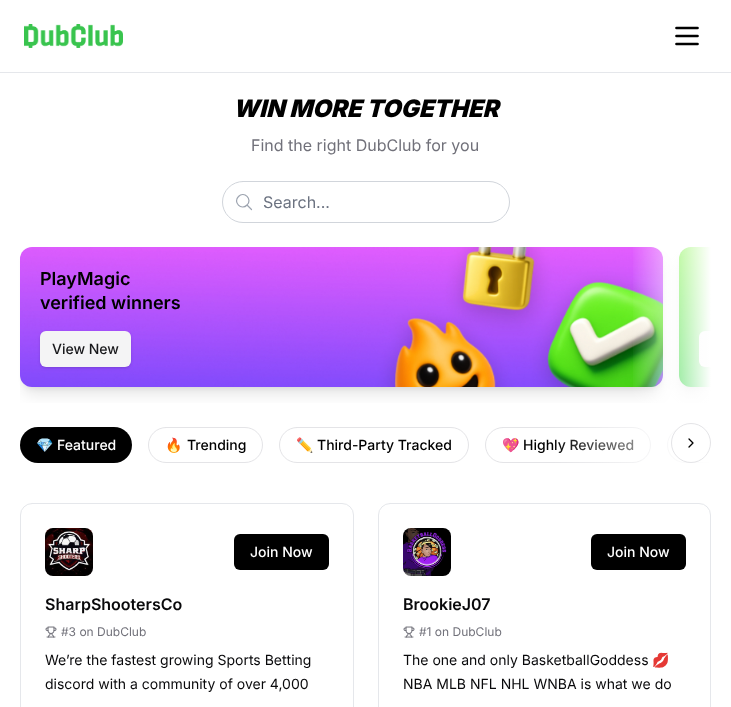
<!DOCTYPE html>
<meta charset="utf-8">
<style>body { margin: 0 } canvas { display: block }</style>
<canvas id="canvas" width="731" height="707"></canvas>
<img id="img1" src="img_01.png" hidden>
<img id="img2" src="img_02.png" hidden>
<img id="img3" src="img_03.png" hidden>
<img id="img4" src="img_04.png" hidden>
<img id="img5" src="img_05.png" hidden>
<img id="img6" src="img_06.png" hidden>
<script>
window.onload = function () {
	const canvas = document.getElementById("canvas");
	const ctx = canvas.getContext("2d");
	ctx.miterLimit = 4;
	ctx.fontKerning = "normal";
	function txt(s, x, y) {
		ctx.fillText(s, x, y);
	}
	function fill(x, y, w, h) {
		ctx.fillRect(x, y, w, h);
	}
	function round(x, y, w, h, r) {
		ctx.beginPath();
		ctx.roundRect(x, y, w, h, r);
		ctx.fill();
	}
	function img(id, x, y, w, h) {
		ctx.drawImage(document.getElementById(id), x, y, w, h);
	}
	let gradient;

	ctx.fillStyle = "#FFFFFF";
	fill(0, 0, 731, 707);
	ctx.fillStyle = "#E5E7EB";
	fill(0, 72, 731, 1);
	img("img1", 24, 24, 99, 24);
	ctx.beginPath();
	ctx.moveTo(676.5, 36);
	ctx.lineTo(697.5, 36);
	ctx.moveTo(676.5, 28);
	ctx.lineTo(697.5, 28);
	ctx.moveTo(676.5, 44);
	ctx.lineTo(697.5, 44);
	ctx.strokeStyle = "#000000";
	ctx.lineWidth = 2.7;
	ctx.lineCap = "round";
	ctx.lineJoin = "round";
	ctx.stroke();
	ctx.beginPath();
	ctx.roundRect(222.5, 181.5, 287, 41, 20.5);
	ctx.strokeStyle = "#D1D5DB";
	ctx.lineWidth = 1;
	ctx.lineJoin = "miter";
	ctx.stroke();
	ctx.beginPath();
	ctx.moveTo(251.5, 209.5);
	ctx.lineTo(247, 205);
	ctx.moveTo(247, 205);
	ctx.bezierCurveTo(253, 199.5, 244, 190.5, 238.5, 196.5);
	ctx.bezierCurveTo(232.5, 202, 241.5, 211, 247, 205);
	ctx.closePath();
	ctx.strokeStyle = "#9CA3AF";
	ctx.lineWidth = 1.2;
	ctx.lineJoin = "round";
	ctx.stroke();
	ctx.fillStyle = "rgba(0, 0, 0, 0.1)";
	ctx.filter = "blur(3px)";
	ctx.beginPath();
	ctx.roundRect(24, 255, 635, 132, 8);
	ctx.fill();
	ctx.filter = "none";
	ctx.save();
	ctx.beginPath();
	ctx.rect(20, 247, 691, 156);
	ctx.clip();
	ctx.filter = "blur(7.5px)";
	ctx.beginPath();
	ctx.roundRect(23, 260, 637, 134, 9);
	ctx.fill();
	ctx.filter = "none";
	ctx.restore();
	img("img2", 20, 247, 643, 140);
	ctx.filter = "blur(1px)";
	ctx.beginPath();
	ctx.roundRect(41, 333, 89, 34, 5);
	ctx.fill();
	ctx.filter = "none";
	ctx.filter = "blur(1.5px)";
	ctx.beginPath();
	ctx.roundRect(40, 332, 91, 36, 6);
	ctx.fill();
	ctx.filter = "none";
	ctx.fillStyle = "#F4F4F5";
	round(40, 331, 91, 36, 6);
	ctx.save();
	ctx.beginPath();
	ctx.rect(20, 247, 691, 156);
	ctx.clip();
	ctx.fillStyle = "rgba(0, 0, 0, 0.1)";
	ctx.filter = "blur(3px)";
	ctx.beginPath();
	ctx.roundRect(683, 255, 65, 132, 8);
	ctx.fill();
	ctx.filter = "none";
	ctx.filter = "blur(7.5px)";
	ctx.beginPath();
	ctx.roundRect(682, 260, 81, 134, 9);
	ctx.fill();
	ctx.filter = "none";
	ctx.restore();
	img("img3", 679, 247, 32, 140);
	ctx.save();
	ctx.beginPath();
	ctx.rect(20, 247, 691, 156);
	ctx.clip();
	ctx.fillStyle = "rgba(0, 0, 0, 0.1)";
	ctx.filter = "blur(1.5px)";
	ctx.beginPath();
	ctx.roundRect(699, 332, 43, 36, 6);
	ctx.fill();
	ctx.filter = "none";
	ctx.restore();
	ctx.beginPath();
	ctx.roundRect(699, 331, 12, 36, [6, 0, 0, 6]);
	ctx.fill();
	gradient = ctx.createLinearGradient(711, 325, 631, 325);
	gradient.addColorStop(0, "#FFFFFF");
	gradient.addColorStop(1, "rgba(255, 255, 255, 0)");
	ctx.fillStyle = gradient;
	fill(633, 247, 78, 156);
	ctx.fillStyle = "#000000";
	round(20, 427, 112, 36, 18);
	ctx.beginPath();
	ctx.roundRect(148.5, 427.5, 114, 35, 17.5);
	ctx.strokeStyle = "#E4E4E7";
	ctx.lineWidth = 1;
	ctx.lineJoin = "miter";
	ctx.stroke();
	ctx.beginPath();
	ctx.roundRect(279.5, 427.5, 189, 35, 17.5);
	ctx.stroke();
	ctx.beginPath();
	ctx.roundRect(485.5, 427.5, 165, 35, 17.5);
	ctx.stroke();
	ctx.save();
	ctx.beginPath();
	ctx.rect(20, 427, 691, 36);
	ctx.clip();
	ctx.beginPath();
	ctx.roundRect(667.5, 427.5, 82, 35, 17.5);
	ctx.stroke();
	ctx.restore();
	ctx.beginPath();
	ctx.roundRect(20.5, 503.5, 333, 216, 11.5);
	ctx.strokeStyle = "#E5E7EB";
	ctx.stroke();
	img("img4", 45, 528, 48, 48);
	round(234, 534, 95, 36, 6);
	img("img5", 45, 626, 12, 12);
	ctx.beginPath();
	ctx.roundRect(378.5, 503.5, 332, 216, 11.5);
	ctx.stroke();
	img("img6", 403, 528, 48, 48);
	round(591, 534, 95, 36, 6);
	img("img5", 403, 626, 12, 12);
	ctx.font = "italic 900 24px Inter";
	txt("WIN MORE TOGETHER", 233, 117);
	ctx.font = "16px Inter";
	ctx.fillStyle = "#71717A";
	txt("Find the right DubClub for you", 251, 151);
	ctx.fillStyle = "#6B7280";
	txt("Search...", 263, 208);
	ctx.font = "600 18px Inter";
	ctx.fillStyle = "#000000";
	txt("PlayMagic", 40, 285);
	txt("verified winners", 40, 309);
	ctx.font = "500 14px Inter";
	ctx.fillStyle = "#18181B";
	txt("View New", 52, 354);
	ctx.font = "14px Noto Color Emoji";
	ctx.fillStyle = "#FFFFFF";
	txt("💎", 36, 450);
	ctx.font = "500 14px Inter";
	txt("Featured", 57, 450);
	ctx.font = "14px Noto Color Emoji";
	ctx.fillStyle = "#000000";
	txt("🔥", 165, 450);
	ctx.font = "500 14px Inter";
	txt("Trending", 187, 450);
	ctx.font = "14px Noto Color Emoji";
	txt("✏️", 296, 450);
	ctx.font = "500 14px Inter";
	txt("Third-Party Tracked", 317, 450);
	ctx.font = "14px Noto Color Emoji";
	txt("💖", 502, 450);
	ctx.font = "500 14px Inter";
	txt("Highly Reviewed", 523, 450);
	gradient = ctx.createLinearGradient(711, 445, 551, 445);
	gradient.addColorStop(0, "#FFFFFF");
	gradient.addColorStop(1, "rgba(255, 255, 255, 0)");
	ctx.fillStyle = gradient;
	fill(555, 427, 156, 36);
	ctx.fillStyle = "#FFFFFF";
	ctx.beginPath();
	ctx.arc(691, 443, 19.5, 0, Math.PI * 2);
	ctx.fill();
	ctx.strokeStyle = "#E4E4E7";
	ctx.stroke();
	ctx.beginPath();
	ctx.moveTo(689, 447);
	ctx.lineTo(693, 443);
	ctx.lineTo(689, 439);
	ctx.strokeStyle = "#000000";
	ctx.lineWidth = 1.3;
	ctx.lineJoin = "round";
	ctx.stroke();
	txt("Join Now", 250, 557);
	ctx.font = "600 16px Inter";
	ctx.fillStyle = "#09090B";
	txt("SharpShootersCo", 45, 610);
	ctx.font = "12px Inter";
	ctx.fillStyle = "#71717A";
	txt("#3 on DubClub", 61, 636);
	ctx.font = "14px Inter";
	ctx.fillStyle = "#09090B";
	txt("We’re the fastest growing Sports Betting", 45, 665);
	txt("discord with a community of over 4,000", 45, 689);
	ctx.font = "500 14px Inter";
	ctx.fillStyle = "#FFFFFF";
	txt("Join Now", 607, 557);
	ctx.font = "600 16px Inter";
	ctx.fillStyle = "#09090B";
	txt("BrookieJ07", 403, 610);
	ctx.font = "12px Inter";
	ctx.fillStyle = "#71717A";
	txt("#1 on DubClub", 419, 636);
	ctx.font = "14px Inter";
	ctx.fillStyle = "#09090B";
	txt("The one and only BasketballGoddess", 403, 665);
	ctx.font = "14px Noto Color Emoji";
	txt("💋", 652, 665);
	ctx.font = "14px Inter";
	txt("NBA MLB NFL NHL WNBA is what we do", 403, 689);
};
</script>
